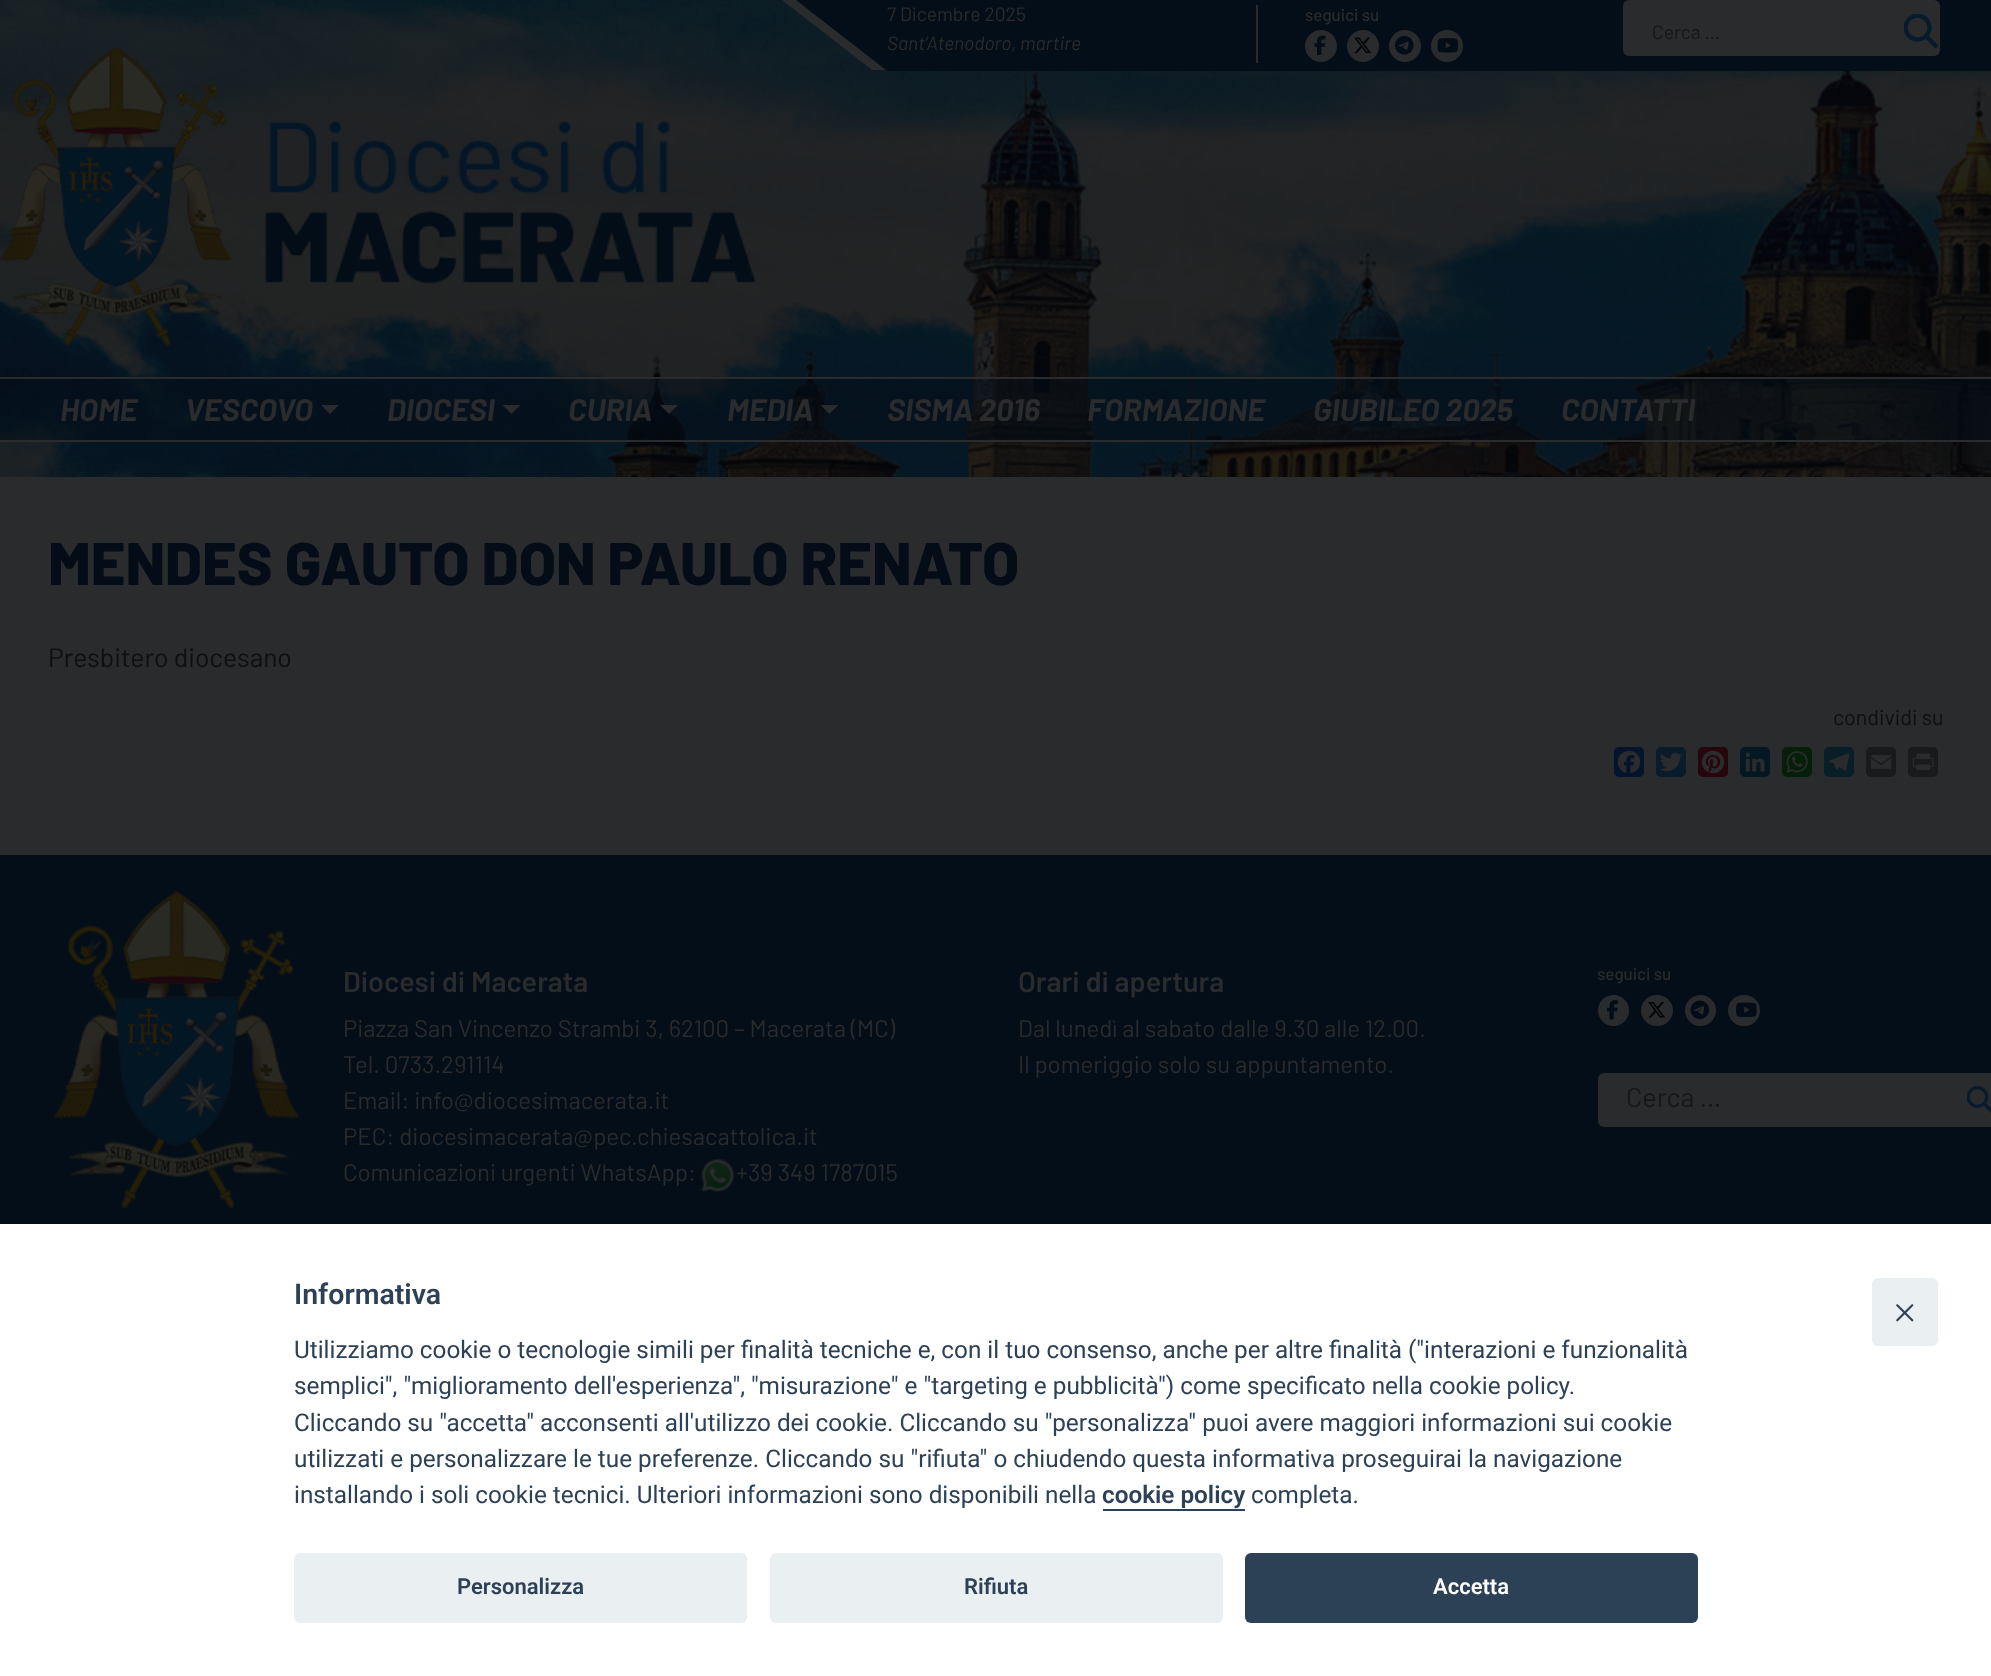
<!DOCTYPE html>
<meta charset="utf-8">
<style>body { margin: 0 } canvas { display: block }</style>
<canvas id="canvas" width="1991" height="1676"></canvas>
<img id="img1" src="img_01.png" hidden>
<img id="img2" src="img_02.png" hidden>
<img id="img3" src="img_03.png" hidden>
<img id="img4" src="img_04.png" hidden>
<img id="img5" src="img_05.png" hidden>
<img id="img6" src="img_06.png" hidden>
<img id="img7" src="img_07.png" hidden>
<img id="img8" src="img_08.png" hidden>
<img id="img9" src="img_09.png" hidden>
<img id="img10" src="img_10.png" hidden>
<img id="img11" src="img_11.png" hidden>
<img id="img12" src="img_12.png" hidden>
<img id="img13" src="img_13.png" hidden>
<img id="img14" src="img_14.png" hidden>
<img id="img15" src="img_15.png" hidden>
<img id="img16" src="img_16.png" hidden>
<img id="img17" src="img_17.png" hidden>
<img id="img18" src="img_18.png" hidden>
<img id="img19" src="img_19.png" hidden>
<img id="img20" src="img_20.png" hidden>
<img id="img21" src="img_21.png" hidden>
<img id="img22" src="img_22.png" hidden>
<script>
window.onload = function () {
	const canvas = document.getElementById("canvas");
	const ctx = canvas.getContext("2d");
	ctx.miterLimit = 4;
	ctx.fontKerning = "normal";
	function txt(s, x, y) {
		ctx.fillText(s, x, y);
	}
	function fill(x, y, w, h) {
		ctx.fillRect(x, y, w, h);
	}
	function round(x, y, w, h, r) {
		ctx.beginPath();
		ctx.roundRect(x, y, w, h, r);
		ctx.fill();
	}
	function img(id, x, y, w, h) {
		ctx.drawImage(document.getElementById(id), x, y, w, h);
	}

	ctx.fillStyle = "#FFFFFF";
	fill(0, 0, 1991, 1676);
	img("img1", 0, 0, 1991, 477);
	ctx.fillStyle = "#2A2B2D";
	ctx.beginPath();
	ctx.moveTo(782, 0);
	ctx.lineTo(1977, 0);
	ctx.lineTo(1977, 70);
	ctx.lineTo(872, 70);
	ctx.closePath();
	ctx.fill();
	ctx.fillStyle = "#030E18";
	fill(887, 70, 1104, 1);
	ctx.beginPath();
	ctx.moveTo(796, 0);
	ctx.lineTo(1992, 0);
	ctx.lineTo(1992, 70);
	ctx.lineTo(886, 70);
	ctx.closePath();
	ctx.fill();
	ctx.fillStyle = "#2A2B2D";
	fill(1256, 5, 2, 58);
	ctx.beginPath();
	ctx.arc(1321, 46, 15, 0, Math.PI * 2);
	ctx.fill();
	ctx.strokeStyle = "#2A2B2D";
	ctx.lineWidth = 2;
	ctx.stroke();
	img("img2", 1314, 35, 12, 20);
	ctx.beginPath();
	ctx.arc(1363, 46, 15, 0, Math.PI * 2);
	ctx.fill();
	ctx.stroke();
	img("img3", 1354, 37, 18, 17);
	ctx.beginPath();
	ctx.arc(1405, 46, 15, 0, Math.PI * 2);
	ctx.fill();
	ctx.stroke();
	img("img4", 1395, 36, 19, 19);
	ctx.beginPath();
	ctx.arc(1447, 46, 15, 0, Math.PI * 2);
	ctx.fill();
	ctx.stroke();
	img("img5", 1437, 38, 22, 15);
	round(1623, 0, 317, 56, 6);
	img("img6", 1904, 14, 34, 34);
	img("img7", 0, 46, 756, 307);
	ctx.fillStyle = "rgba(3, 14, 24, 0.5)";
	fill(0, 379, 1991, 61);
	ctx.fillStyle = "#2A2B2D";
	fill(0, 377, 1991, 2);
	fill(0, 440, 1991, 2);
	ctx.beginPath();
	ctx.moveTo(321, 405);
	ctx.lineTo(339, 405);
	ctx.lineTo(330, 414);
	ctx.closePath();
	ctx.fill();
	ctx.beginPath();
	ctx.moveTo(502.5, 405);
	ctx.lineTo(520.5, 405);
	ctx.lineTo(511.5, 414);
	ctx.closePath();
	ctx.fill();
	ctx.beginPath();
	ctx.moveTo(660, 405);
	ctx.lineTo(678, 405);
	ctx.lineTo(669, 414);
	ctx.closePath();
	ctx.fill();
	ctx.beginPath();
	ctx.moveTo(820.5, 405);
	ctx.lineTo(838.5, 405);
	ctx.lineTo(829.5, 414);
	ctx.closePath();
	ctx.fill();
	fill(0, 477, 1991, 378);
	ctx.fillStyle = "#05142D";
	round(1614, 747, 30, 30, 5);
	img("img8", 1617, 750, 24, 24);
	ctx.fillStyle = "#081C2B";
	round(1656, 747, 30, 30, 5);
	img("img9", 1660, 752, 23, 20);
	ctx.fillStyle = "#26050C";
	round(1698, 747, 30, 30, 5);
	img("img10", 1701, 750, 24, 24);
	ctx.fillStyle = "#031822";
	round(1740, 747, 30, 30, 5);
	img("img11", 1745, 752, 20, 20);
	ctx.fillStyle = "#061F08";
	round(1782, 747, 30, 30, 5);
	img("img12", 1786, 751, 22, 22);
	ctx.fillStyle = "#0A1E28";
	round(1824, 747, 30, 30, 5);
	img("img13", 1828, 753, 22, 18);
	ctx.fillStyle = "#181A1C";
	round(1866, 747, 30, 30, 5);
	img("img14", 1870, 755, 22, 14);
	round(1908, 747, 30, 30, 5);
	img("img15", 1912, 753, 22, 17);
	ctx.fillStyle = "#030E18";
	fill(0, 855, 1991, 369);
	img("img16", 54, 891, 245, 324);
	img("img17", 700, 1158, 35, 35);
	ctx.fillStyle = "#2A2B2D";
	ctx.beginPath();
	ctx.arc(1613.5, 1010.5, 14.5, 0, Math.PI * 2);
	ctx.fill();
	ctx.stroke();
	img("img18", 1607, 1000, 11, 20);
	ctx.beginPath();
	ctx.roundRect(1642, 996, 30, 29, 14.5);
	ctx.fill();
	ctx.stroke();
	img("img19", 1648, 1002, 18, 16);
	ctx.beginPath();
	ctx.arc(1700.5, 1010.5, 14.5, 0, Math.PI * 2);
	ctx.fill();
	ctx.stroke();
	img("img20", 1690, 1000, 20, 20);
	ctx.beginPath();
	ctx.roundRect(1729, 996, 30, 29, 14.5);
	ctx.fill();
	ctx.stroke();
	img("img21", 1736, 1002, 21, 15);
	round(1598, 1073, 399, 54, 6);
	img("img22", 1967, 1086, 24, 27);
	ctx.fillStyle = "#2D4156";
	fill(1103, 1509, 142, 2);
	ctx.fillStyle = "#EAEFF2";
	round(294, 1553, 453, 70, 6);
	round(770, 1553, 453, 70, 6);
	ctx.fillStyle = "#2D4156";
	round(1245, 1553, 453, 70, 6);
	ctx.fillStyle = "#EAEFF2";
	round(1872, 1278, 66, 68, 6);
	ctx.fillStyle = "#2D4156";
	ctx.beginPath();
	ctx.moveTo(1913, 1304.5);
	ctx.bezierCurveTo(1913.5, 1305, 1913.5, 1305.5, 1913, 1306);
	ctx.lineTo(1898, 1321);
	ctx.bezierCurveTo(1897.5, 1321.5, 1897, 1321.5, 1896.5, 1321);
	ctx.bezierCurveTo(1896, 1320.5, 1896, 1320, 1896.5, 1319.5);
	ctx.lineTo(1911.5, 1304.5);
	ctx.bezierCurveTo(1912, 1304, 1912.5, 1304, 1913, 1304.5);
	ctx.closePath();
	ctx.fill();
	ctx.beginPath();
	ctx.moveTo(1896.5, 1304.5);
	ctx.bezierCurveTo(1897, 1304, 1897.5, 1304, 1898, 1304.5);
	ctx.lineTo(1913, 1319.5);
	ctx.bezierCurveTo(1913.5, 1320, 1913.5, 1320.5, 1913, 1321);
	ctx.bezierCurveTo(1912.5, 1321.5, 1912, 1321.5, 1911.5, 1321);
	ctx.lineTo(1896.5, 1306);
	ctx.bezierCurveTo(1896, 1305.5, 1896, 1305, 1896.5, 1304.5);
	ctx.closePath();
	ctx.fill();
	ctx.font = "19.25px Barlow";
	ctx.fillStyle = "#2A2B2D";
	txt("7 Dicembre 2025", 887, 21);
	ctx.font = "italic 19.25px Barlow";
	txt("Sant’Atenodoro, martire", 887, 50);
	ctx.font = "500 17px Barlow";
	txt("seguici su", 1305, 21);
	ctx.font = "19.25px Barlow";
	ctx.fillStyle = "#151718";
	txt("Cerca …", 1652, 39);
	ctx.font = "italic bold 31.25px Barlow";
	ctx.fillStyle = "#2A2B2D";
	txt("HOME", 60, 421);
	txt("VESCOVO", 185, 421);
	txt("DIOCESI", 387, 421);
	txt("CURIA", 568, 421);
	txt("MEDIA", 727, 421);
	txt("SISMA 2016", 887, 421);
	txt("FORMAZIONE", 1087, 421);
	txt("GIUBILEO 2025", 1313, 421);
	txt("CONTATTI", 1561, 421);
	ctx.font = "800 60px Barlow";
	ctx.fillStyle = "#040D17";
	txt("MENDES GAUTO DON PAULO RENATO", 48, 585);
	ctx.font = "26.5px Barlow";
	ctx.fillStyle = "#0D0F11";
	txt("Presbitero diocesano", 48, 667);
	ctx.font = "21.5px Barlow";
	txt("condividi su", 1833, 725);
	ctx.font = "600 28.75px Barlow";
	ctx.fillStyle = "#2A2B2D";
	txt("Diocesi di Macerata", 343, 992);
	ctx.font = "24px Barlow";
	txt("Piazza San Vincenzo Strambi 3, 62100 – Macerata (MC)", 343, 1037);
	txt("Tel. 0733.291114", 343, 1073);
	txt("Email: info@diocesimacerata.it", 343, 1109);
	txt("PEC: diocesimacerata@pec.chiesacattolica.it", 343, 1145);
	txt("Comunicazioni urgenti WhatsApp:", 343, 1181);
	txt("+39 349 1787015", 736, 1181);
	ctx.font = "600 28.75px Barlow";
	txt("Orari di apertura", 1018, 992);
	ctx.font = "24px Barlow";
	txt("Dal lunedì al sabato dalle 9.30 alle 12.00.", 1018, 1037);
	txt("Il pomeriggio solo su appuntamento.", 1018, 1073);
	ctx.font = "500 17px Barlow";
	txt("seguici su", 1597, 980);
	ctx.font = "27px Barlow";
	ctx.fillStyle = "#151718";
	txt("Cerca …", 1626, 1107);
	ctx.font = "600 28.5px Roboto";
	ctx.fillStyle = "#2D4156";
	txt("Informativa", 294, 1304);
	ctx.font = "24.3px Roboto";
	txt("Utilizziamo cookie o tecnologie simili per finalità tecniche e, con il tuo consenso, anche per altre finalità (\"interazioni e funzionalità", 294, 1358);
	txt("semplici\", \"miglioramento dell'esperienza\", \"misurazione\" e \"targeting e pubblicità\") come specificato nella cookie policy.", 294, 1394);
	txt("Cliccando su \"accetta\" acconsenti all'utilizzo dei cookie. Cliccando su \"personalizza\" puoi avere maggiori informazioni sui cookie", 294, 1431);
	txt("utilizzati e personalizzare le tue preferenze. Cliccando su \"rifiuta\" o chiudendo questa informativa proseguirai la navigazione", 294, 1467);
	txt("installando i soli cookie tecnici. Ulteriori informazioni sono disponibili nella", 294, 1503);
	ctx.font = "600 24.3px Roboto";
	txt("cookie policy", 1102, 1503);
	ctx.font = "24.3px Roboto";
	txt("completa.", 1251, 1503);
	ctx.font = "600 22px Roboto";
	txt("Personalizza", 457, 1594);
	txt("Rifiuta", 964, 1594);
	ctx.fillStyle = "#FFFFFF";
	txt("Accetta", 1433, 1594);
};
</script>
